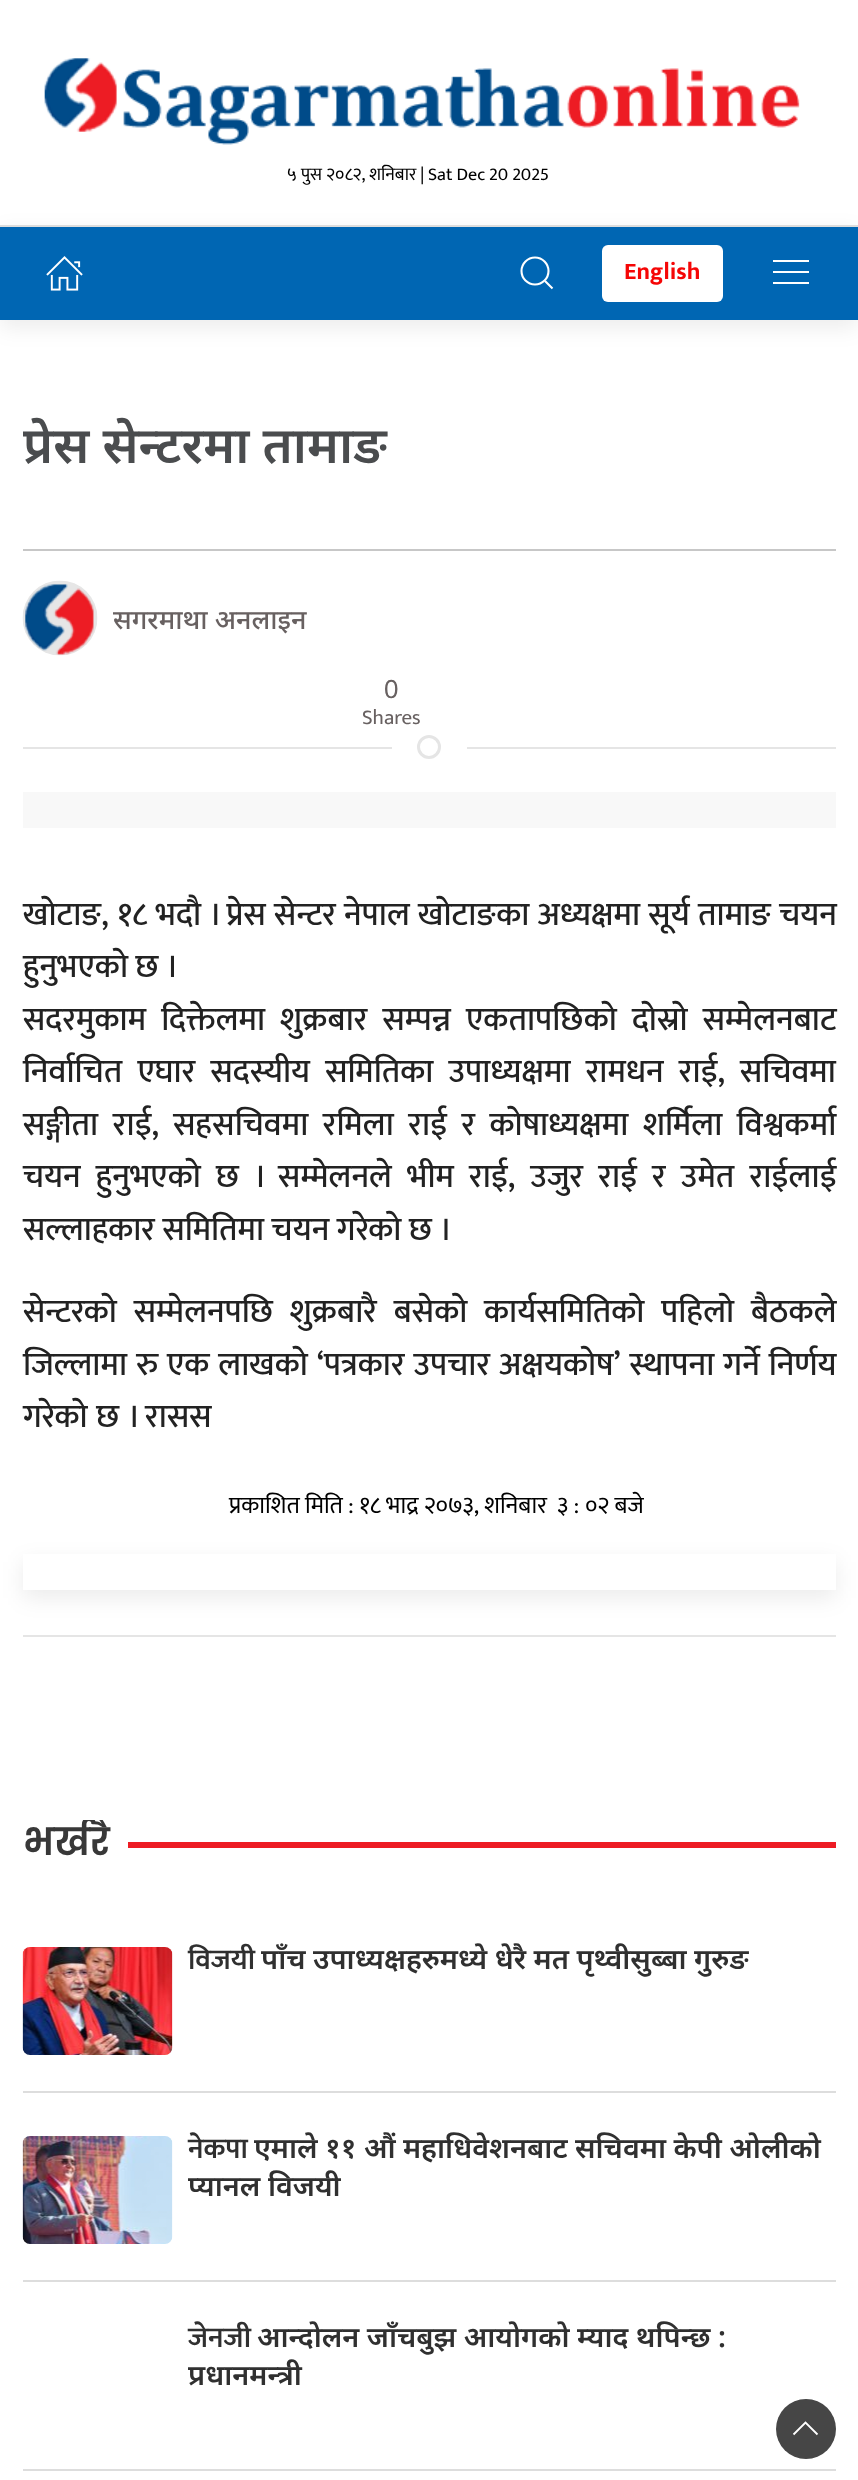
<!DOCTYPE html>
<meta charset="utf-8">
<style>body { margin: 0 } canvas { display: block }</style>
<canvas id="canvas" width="858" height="2480"></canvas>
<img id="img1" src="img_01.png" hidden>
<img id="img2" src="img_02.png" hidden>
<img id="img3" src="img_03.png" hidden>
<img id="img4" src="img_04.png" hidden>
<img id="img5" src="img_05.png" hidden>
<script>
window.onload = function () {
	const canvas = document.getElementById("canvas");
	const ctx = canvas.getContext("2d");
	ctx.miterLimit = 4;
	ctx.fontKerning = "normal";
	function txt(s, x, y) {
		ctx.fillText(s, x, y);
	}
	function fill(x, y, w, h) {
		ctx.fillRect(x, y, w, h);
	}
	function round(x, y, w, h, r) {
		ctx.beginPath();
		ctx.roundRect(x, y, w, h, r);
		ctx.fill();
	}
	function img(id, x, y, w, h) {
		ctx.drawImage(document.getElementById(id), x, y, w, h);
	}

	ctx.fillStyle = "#FFFFFF";
	fill(0, 0, 858, 2480);
	img("img1", 44, 58, 756, 87);
	ctx.fillStyle = "rgba(0, 0, 0, 0.08)";
	ctx.filter = "blur(11px)";
	ctx.beginPath();
	ctx.rect(0, 233, 858, 94);
	ctx.fill();
	ctx.filter = "none";
	ctx.fillStyle = "#0066B3";
	fill(0, 227, 858, 93);
	ctx.fillStyle = "#DDDDDD";
	fill(0, 225, 858, 2);
	img("img2", 46, 256, 37, 35);
	ctx.beginPath();
	ctx.arc(535, 271, 13.5, 0, Math.PI * 2);
	ctx.strokeStyle = "#FFFFFF";
	ctx.lineWidth = 2.1;
	ctx.stroke();
	ctx.beginPath();
	ctx.moveTo(545, 281);
	ctx.lineTo(552.5, 288.5);
	ctx.closePath();
	ctx.stroke();
	ctx.fillStyle = "#FFFFFF";
	round(602, 245, 121, 57, 6);
	fill(773, 260, 36, 2);
	fill(773, 271, 36, 2);
	fill(773, 282, 36, 2);
	ctx.fillStyle = "#C7C7C7";
	fill(23, 549, 813, 2);
	img("img3", 22, 580, 76, 76);
	ctx.beginPath();
	ctx.arc(429, 747, 10.5, 0, Math.PI * 2);
	ctx.strokeStyle = "#E5E5E5";
	ctx.lineWidth = 3;
	ctx.stroke();
	ctx.fillStyle = "#E5E5E5";
	fill(23, 747, 369, 2);
	fill(467, 747, 369, 2);
	ctx.fillStyle = "#F8F8F8";
	fill(23, 792, 813, 36);
	ctx.fillStyle = "rgba(0, 0, 0, 0.08)";
	ctx.filter = "blur(11px)";
	ctx.beginPath();
	ctx.rect(23, 1562, 813, 36);
	ctx.fill();
	ctx.filter = "none";
	ctx.fillStyle = "#FFFFFF";
	fill(23, 1554, 813, 36);
	ctx.fillStyle = "#E5E5E5";
	fill(23, 1635, 813, 2);
	ctx.fillStyle = "#ED1C24";
	fill(128, 1842, 708, 6);
	ctx.fillStyle = "#DDDDDD";
	fill(23, 2091, 813, 2);
	img("img4", 22, 1947, 151, 108);
	fill(23, 2280, 813, 2);
	img("img5", 22, 2136, 151, 108);
	fill(23, 2469, 813, 2);
	ctx.fillStyle = "#464646";
	ctx.beginPath();
	ctx.arc(806, 2429, 30, 0, Math.PI * 2);
	ctx.fill();
	ctx.beginPath();
	ctx.moveTo(793.5, 2434.5);
	ctx.lineTo(805.5, 2422.5);
	ctx.lineTo(817.5, 2434.5);
	ctx.strokeStyle = "#FFFFFF";
	ctx.lineWidth = 1.8;
	ctx.stroke();
	ctx.font = "18px Mukta";
	ctx.fillStyle = "#000000";
	txt("५ पुस २०८२, शनिबार |", 287, 180);
	txt("Sat Dec 20 2025", 428, 180);
	ctx.font = "bold 24px Mukta";
	ctx.fillStyle = "#F50606";
	txt("English", 624, 279);
	ctx.font = "600 50.5px Noto Sans";
	ctx.fillStyle = "#4A4C4E";
	txt("प्रेस सेन्टरमा तामाङ", 23, 463);
	ctx.font = "500 27px Noto Sans";
	ctx.fillStyle = "#686161";
	txt("सगरमाथा अनलाइन", 113, 629);
	ctx.font = "26px Liberation Sans";
	txt("0", 384, 698);
	ctx.font = "21px Mukta";
	txt("Shares", 362, 724);
	ctx.wordSpacing = "0.75px";
	ctx.font = "500 33px Mukta";
	ctx.fillStyle = "#222222";
	txt("खोटाङ, १८ भदौ । प्रेस सेन्टर नेपाल खोटाङका अध्यक्षमा सूर्य तामाङ चयन", 23, 925);
	ctx.wordSpacing = "0px";
	txt("हुनुभएको छ ।", 23, 977);
	ctx.wordSpacing = "7.5px";
	txt("सदरमुकाम दिक्तेलमा शुक्रबार सम्पन्न एकतापछिको दोस्रो सम्मेलनबाट", 23, 1030);
	ctx.wordSpacing = "7.6px";
	txt("निर्वाचित एघार सदस्यीय समितिका उपाध्यक्षमा रामधन राई, सचिवमा", 23, 1082);
	ctx.wordSpacing = "7px";
	txt("सङ्गीता राई, सहसचिवमा रमिला राई र कोषाध्यक्षमा शर्मिला विश्वकर्मा", 23, 1135);
	ctx.wordSpacing = "7.6px";
	txt("चयन हुनुभएको छ । सम्मेलनले भीम राई, उजुर राई र उमेत राईलाई", 23, 1187);
	ctx.wordSpacing = "0px";
	txt("सल्लाहकार समितिमा चयन गरेको छ ।", 23, 1240);
	ctx.wordSpacing = "9.25px";
	txt("सेन्टरको सम्मेलनपछि शुक्रबारै बसेको कार्यसमितिको पहिलो बैठकले", 23, 1322);
	ctx.wordSpacing = "1.5px";
	txt("जिल्लामा रु एक लाखको ‘पत्रकार उपचार अक्षयकोष’ स्थापना गर्ने निर्णय", 23, 1375);
	ctx.wordSpacing = "1px";
	txt("गरेको छ । रासस", 23, 1427);
	ctx.wordSpacing = "0px";
	ctx.font = "24px Mukta";
	ctx.fillStyle = "#000000";
	txt("प्रकाशित मिति :", 229, 1513);
	txt("१८ भाद्र २०७३, शनिबार  ३ :", 359, 1513);
	txt("०२ बजे", 585, 1513);
	ctx.save();
	ctx.beginPath();
	ctx.rect(23, 1820, 813, 46);
	ctx.clip();
	ctx.font = "600 37.5px Poppins";
	ctx.fillStyle = "#383838";
	txt("भर्खरै", 23, 1855);
	ctx.restore();
	ctx.font = "600 28.75px Mukta";
	ctx.fillStyle = "#303030";
	txt("विजयी", 188, 1969);
	ctx.font = "600 28.75px Noto Sans";
	txt("पाँच उपाध्यक्षहरुमध्ये धेरै मत पृथ्वीसुब्बा गुरुङ", 261, 1969);
	ctx.font = "600 28.75px Mukta";
	txt("नेकपा", 188, 2158);
	ctx.font = "600 28.75px Noto Sans";
	txt("एमाले ११ औं महाधिवेशनबाट सचिवमा केपी ओलीको", 254, 2158);
	txt("प्यानल विजयी", 188, 2196);
	ctx.font = "600 28.75px Mukta";
	txt("जेनजी", 188, 2347);
	ctx.font = "600 28.75px Noto Sans";
	txt("आन्दोलन जाँचबुझ आयोगको म्याद थपिन्छ :", 257, 2347);
	txt("प्रधानमन्त्री", 188, 2385);
};
</script>
